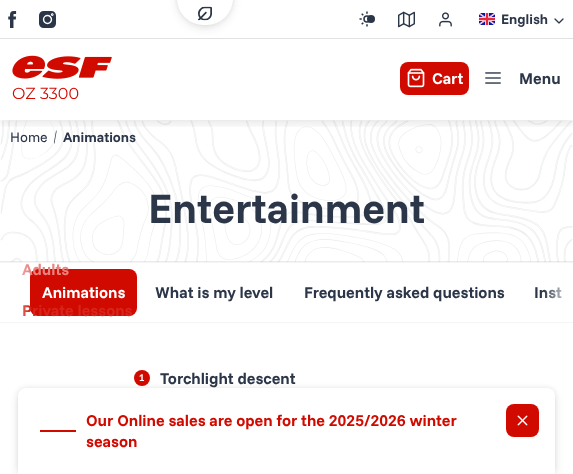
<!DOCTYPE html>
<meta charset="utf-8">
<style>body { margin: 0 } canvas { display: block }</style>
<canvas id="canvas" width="573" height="474"></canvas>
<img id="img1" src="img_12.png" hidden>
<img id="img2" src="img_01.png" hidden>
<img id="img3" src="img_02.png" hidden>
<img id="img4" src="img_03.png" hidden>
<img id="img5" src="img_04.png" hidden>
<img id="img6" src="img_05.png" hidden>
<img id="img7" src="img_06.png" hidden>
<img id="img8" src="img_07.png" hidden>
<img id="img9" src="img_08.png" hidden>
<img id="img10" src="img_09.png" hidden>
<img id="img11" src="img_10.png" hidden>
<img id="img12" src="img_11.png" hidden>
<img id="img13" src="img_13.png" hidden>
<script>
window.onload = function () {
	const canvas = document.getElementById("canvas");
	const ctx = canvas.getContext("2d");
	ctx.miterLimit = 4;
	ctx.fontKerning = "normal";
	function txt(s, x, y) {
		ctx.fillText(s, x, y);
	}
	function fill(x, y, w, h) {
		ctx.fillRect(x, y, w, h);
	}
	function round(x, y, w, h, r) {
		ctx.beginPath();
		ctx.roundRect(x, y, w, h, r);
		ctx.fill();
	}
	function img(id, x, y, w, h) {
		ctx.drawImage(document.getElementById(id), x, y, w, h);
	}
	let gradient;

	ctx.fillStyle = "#FFFFFF";
	fill(0, 0, 573, 474);
	img("img1", 0, 120, 573, 142);
	ctx.fillStyle = "#2C3649";
	ctx.beginPath();
	ctx.moveTo(56.5, 130);
	ctx.lineTo(56.5, 132);
	ctx.lineTo(54.5, 143);
	ctx.lineTo(54, 144);
	ctx.lineTo(54, 142);
	ctx.lineTo(56, 131);
	ctx.closePath();
	ctx.fill();
	ctx.save();
	ctx.beginPath();
	ctx.rect(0, 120, 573, 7);
	ctx.clip();
	ctx.fillStyle = "rgba(33, 33, 33, 0.1)";
	ctx.filter = "blur(4px)";
	ctx.beginPath();
	ctx.rect(0, 4, 573, 120);
	ctx.fill();
	ctx.filter = "none";
	ctx.restore();
	img("img2", 8, 11, 9, 17);
	img("img3", 39, 11, 17, 17);
	ctx.fillStyle = "#E1E1E1";
	fill(0, 38, 573, 1);
	ctx.fillStyle = "rgba(33, 33, 33, 0.1)";
	ctx.filter = "blur(4px)";
	ctx.beginPath();
	ctx.roundRect(177, -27, 56, 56, 28);
	ctx.fill();
	ctx.filter = "none";
	ctx.filter = "blur(2px)";
	ctx.beginPath();
	ctx.roundRect(177, -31, 56, 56, 28);
	ctx.fill();
	ctx.filter = "none";
	ctx.fillStyle = "#FFFFFF";
	round(177, -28, 56, 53, 28);
	img("img4", 198, 6, 14, 15);
	img("img5", 359, 11, 11, 16);
	ctx.fillStyle = "#2C3649";
	ctx.beginPath();
	ctx.arc(371, 19, 4, 0, Math.PI * 2);
	ctx.fill();
	img("img6", 398, 11, 17, 17);
	img("img7", 439, 12, 13, 15);
	img("img8", 479, 13, 16, 12);
	img("img9", 554, 18, 10, 6);
	ctx.fillStyle = "#D10A00";
	round(400, 62, 69, 33, 8);
	img("img10", 407, 68, 18, 20);
	img("img11", 485, 72, 16, 12);
	img("img12", 12, 55, 100, 24);
	ctx.fillStyle = "rgba(44, 54, 73, 0.1)";
	fill(0, 261, 573, 1);
	ctx.fillStyle = "#F5F5F5";
	fill(0, 262, 573, 1);
	fill(0, 322, 573, 1);
	ctx.fillStyle = "#D10A00";
	round(30, 269, 107, 47, 8);
	ctx.beginPath();
	ctx.arc(142, 378, 8, 0, Math.PI * 2);
	ctx.fill();
	ctx.fillStyle = "rgba(33, 33, 33, 0.1)";
	ctx.filter = "blur(5px)";
	ctx.beginPath();
	ctx.roundRect(18, 393, 537, 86, 8);
	ctx.fill();
	ctx.filter = "none";
	ctx.filter = "blur(2.5px)";
	ctx.beginPath();
	ctx.roundRect(18, 388, 537, 86, 8);
	ctx.fill();
	ctx.filter = "none";
	ctx.fillStyle = "#FFFFFF";
	ctx.beginPath();
	ctx.roundRect(18, 388, 537, 86, [8, 8, 0, 0]);
	ctx.fill();
	ctx.fillStyle = "#D10A00";
	fill(40, 430, 36, 2);
	round(506, 404, 33, 33, 8);
	img("img13", 517, 415, 11, 11);
	ctx.font = "bold 14px Funnel Sans";
	ctx.fillStyle = "#2C3649";
	txt("English", 501, 24);
	ctx.font = "bold 16px Funnel Sans";
	ctx.fillStyle = "#FFFFFF";
	txt("Cart", 432, 84);
	ctx.fillStyle = "#2C3649";
	txt("Menu", 519, 84);
	ctx.font = "16px Montserrat";
	ctx.fillStyle = "#D10A00";
	txt("OZ 3300", 12, 99);
	ctx.font = "bold 16px Funnel Sans";
	ctx.fillStyle = "#E8837E";
	txt("Adults", 22, 275);
	ctx.fillStyle = "#D6251C";
	txt("Private lessons", 22, 316);
	ctx.font = "14px Funnel Sans";
	ctx.fillStyle = "#2C3649";
	txt("Home", 10, 142);
	ctx.font = "bold 14px Funnel Sans";
	txt("Animations", 63, 142);
	ctx.font = "bold 42px Funnel Sans";
	txt("Entertainment", 148, 223);
	gradient = ctx.createLinearGradient(0, 293, 30, 293);
	gradient.addColorStop(0, "#FFFFFF");
	gradient.addColorStop(1, "rgba(255, 255, 255, 0)");
	ctx.fillStyle = gradient;
	fill(22, 264, 7, 52);
	ctx.font = "bold 16px Funnel Sans";
	ctx.fillStyle = "#FFFFFF";
	txt("Animations", 42, 298);
	ctx.fillStyle = "#2C3649";
	txt("What is my level", 155, 298);
	txt("Frequently asked questions", 304, 298);
	txt("Inst", 534, 298);
	gradient = ctx.createLinearGradient(573, 293, 543, 293);
	gradient.addColorStop(0, "#FFFFFF");
	gradient.addColorStop(1, "rgba(255, 255, 255, 0)");
	ctx.fillStyle = gradient;
	fill(544, 287, 18, 12);
	ctx.font = "bold 10px Funnel Sans";
	ctx.fillStyle = "#FFFFFF";
	txt("1", 139, 381);
	ctx.font = "bold 16px Funnel Sans";
	ctx.fillStyle = "#2C3649";
	txt("Torchlight descent", 160, 384);
	ctx.fillStyle = "#D10A00";
	txt("Our Online sales are open for the 2025/2026 winter", 86, 426);
	txt("season", 86, 447);
};
</script>
